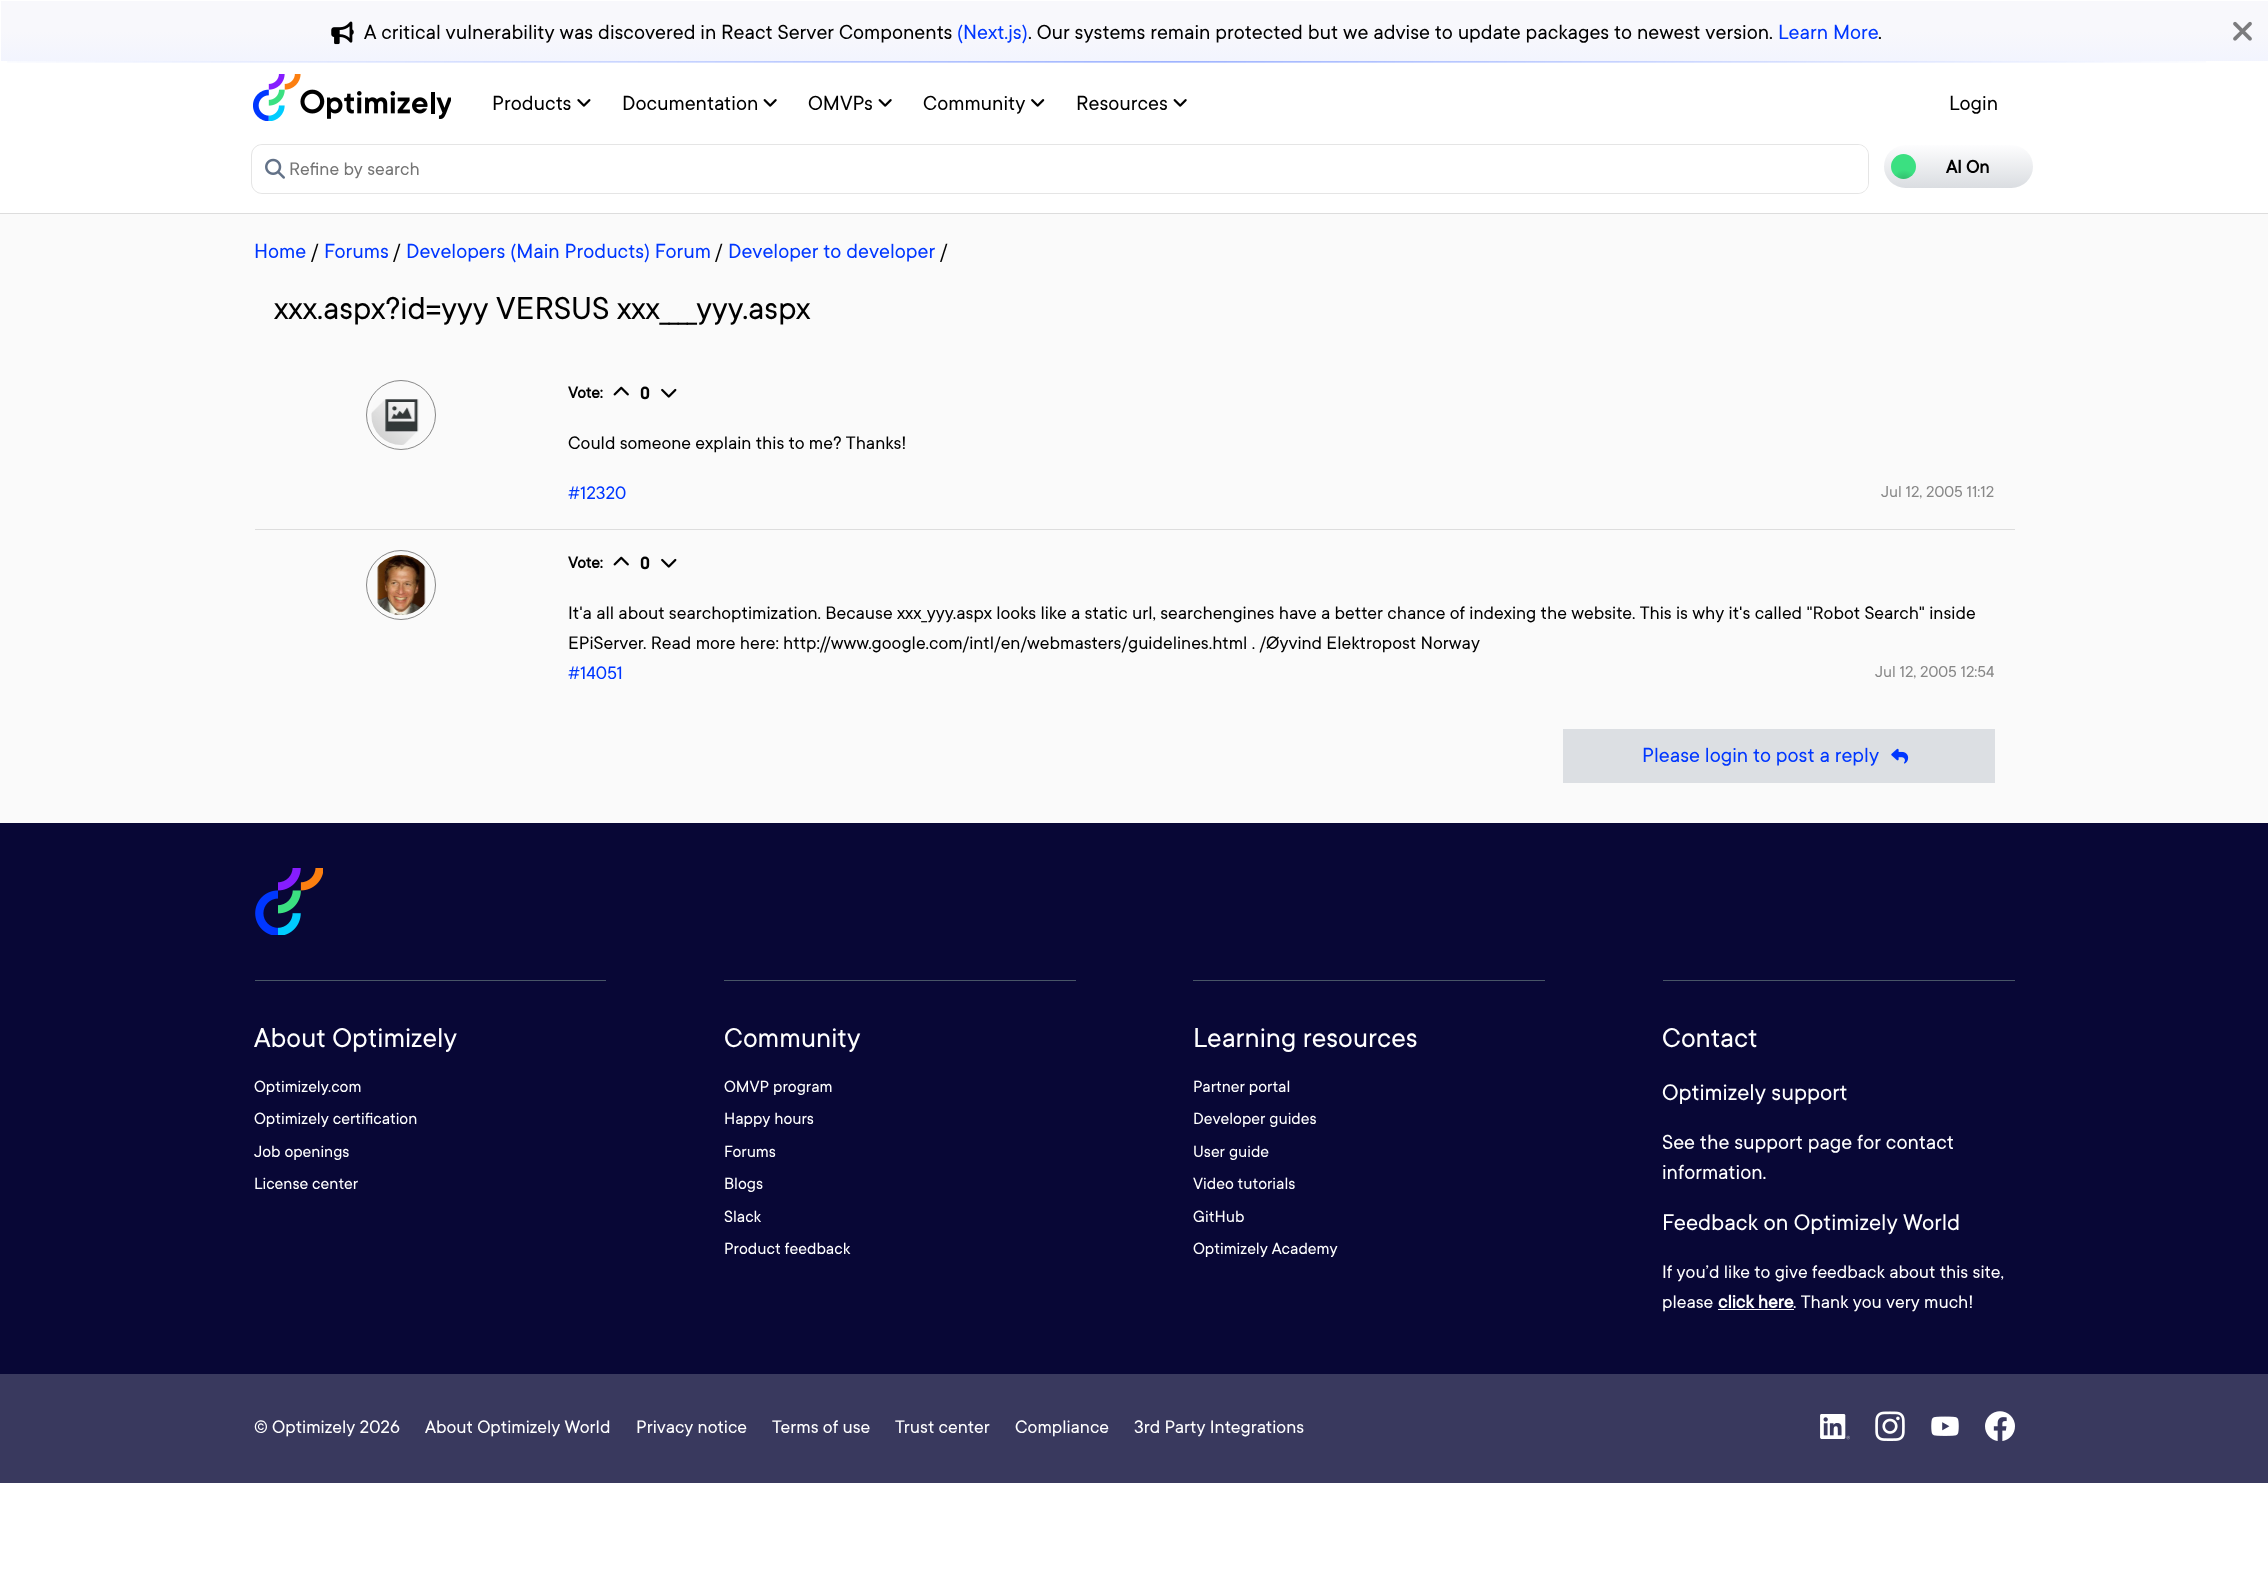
<!DOCTYPE html>
<meta charset="utf-8">
<style>body { margin: 0 } canvas { display: block }</style>
<canvas id="canvas" width="2268" height="1573"></canvas>
<img id="img1" src="img_01.png" hidden>
<img id="img2" src="img_02.png" hidden>
<img id="img3" src="img_03.png" hidden>
<img id="img4" src="img_04.png" hidden>
<img id="img5" src="img_05.png" hidden>
<img id="img6" src="img_06.png" hidden>
<img id="img7" src="img_07.png" hidden>
<img id="img8" src="img_08.png" hidden>
<img id="img9" src="img_09.png" hidden>
<img id="img10" src="img_10.png" hidden>
<img id="img11" src="img_11.png" hidden>
<img id="img12" src="img_12.png" hidden>
<img id="img13" src="img_13.png" hidden>
<img id="img14" src="img_14.png" hidden>
<img id="img15" src="img_15.png" hidden>
<img id="img16" src="img_16.png" hidden>
<img id="img17" src="img_17.png" hidden>
<img id="img18" src="img_18.png" hidden>
<script>
window.onload = function () {
	const canvas = document.getElementById("canvas");
	const ctx = canvas.getContext("2d");
	ctx.miterLimit = 4;
	ctx.fontKerning = "normal";
	function txt(s, x, y) {
		ctx.fillText(s, x, y);
	}
	function fill(x, y, w, h) {
		ctx.fillRect(x, y, w, h);
	}
	function round(x, y, w, h, r) {
		ctx.beginPath();
		ctx.roundRect(x, y, w, h, r);
		ctx.fill();
	}
	function img(id, x, y, w, h) {
		ctx.drawImage(document.getElementById(id), x, y, w, h);
	}
	let gradient;

	ctx.fillStyle = "#FFFFFF";
	fill(0, 0, 2268, 1573);
	ctx.fillStyle = "#FAFAFA";
	fill(0, 214, 2268, 609);
	img("img1", 7, 61, 2199, 2);
	gradient = ctx.createLinearGradient(1134, 1.1, 1134, 74);
	gradient.addColorStop(0.42, "#F8F8FC");
	gradient.addColorStop(1, "#F0F3FF");
	ctx.fillStyle = gradient;
	fill(1, 1, 2267, 60);
	img("img2", 331, 21, 23, 24);
	img("img3", 2233, 21, 19, 20);
	ctx.fillStyle = "#DDDDDD";
	fill(0, 213, 2268, 1);
	img("img4", 253, 74, 198, 47);
	img("img5", 577, 99, 14, 8);
	img("img6", 763, 99, 14, 8);
	img("img6", 878, 99, 14, 8);
	img("img7", 1031, 99, 14, 8);
	img("img6", 1173, 99, 14, 8);
	ctx.beginPath();
	ctx.roundRect(251.5, 144.5, 1617, 49, 10.5);
	ctx.strokeStyle = "#E5E5E5";
	ctx.stroke();
	ctx.fillStyle = "#FFFFFF";
	round(253, 145, 1615, 48, 10);
	img("img8", 265, 158, 20, 21);
	gradient = ctx.createLinearGradient(1958, 145, 1958, 188);
	gradient.addColorStop(0, "#FDFDFE");
	gradient.addColorStop(1, "#DADDE1");
	ctx.fillStyle = gradient;
	round(1884, 145, 149, 43, 21.5);
	gradient = ctx.createRadialGradient(1904, 182, 0, 1904, 182, 28);
	gradient.addColorStop(0, "#2FB367");
	gradient.addColorStop(0.44, "#3BE081");
	ctx.fillStyle = gradient;
	ctx.beginPath();
	ctx.arc(1903.5, 166.5, 12.5, 0, Math.PI * 2);
	ctx.fill();
	ctx.beginPath();
	ctx.arc(401, 415, 34.5, 0, Math.PI * 2);
	ctx.strokeStyle = "#888888";
	ctx.stroke();
	img("img9", 371, 399, 48, 46);
	img("img10", 613, 386, 16, 10);
	img("img11", 661, 388, 16, 10);
	ctx.fillStyle = "#DDDDDD";
	fill(255, 529, 1760, 1);
	ctx.beginPath();
	ctx.arc(401, 585, 34.5, 0, Math.PI * 2);
	ctx.stroke();
	img("img12", 377, 555, 49, 60);
	img("img10", 613, 556, 16, 10);
	img("img11", 661, 558, 16, 10);
	ctx.fillStyle = "#DCDFE3";
	fill(1563, 729, 432, 54);
	img("img13", 1891, 748, 18, 16);
	ctx.fillStyle = "#080736";
	fill(0, 823, 2268, 551);
	img("img14", 255, 868, 68, 67);
	ctx.fillStyle = "#485567";
	fill(255, 980, 351, 1);
	fill(724, 980, 352, 1);
	fill(1193, 980, 352, 1);
	fill(1663, 980, 352, 1);
	ctx.fillStyle = "#FFFFFF";
	fill(1718, 1309, 76, 1);
	ctx.fillStyle = "#39395E";
	fill(0, 1374, 2268, 109);
	img("img15", 1820, 1414, 30, 26);
	img("img16", 1875, 1411, 30, 30);
	img("img17", 1931, 1416, 28, 20);
	img("img18", 1985, 1411, 30, 30);
	ctx.font = "22.5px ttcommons";
	ctx.fillStyle = "#000000";
	txt("A critical vulnerability was discovered in React Server Components", 364, 39);
	ctx.fillStyle = "#0037FF";
	txt("(Next.js)", 957, 39);
	ctx.fillStyle = "#000000";
	txt(". Our systems remain protected but we advise to update packages to newest version.", 1028, 39);
	ctx.fillStyle = "#0037FF";
	txt("Learn More", 1778, 39);
	ctx.fillStyle = "#000000";
	txt(".", 1878, 39);
	txt("Products", 492, 110);
	txt("Documentation", 622, 110);
	txt("OMVPs", 808, 110);
	txt("Community", 923, 110);
	txt("Resources", 1076, 110);
	txt("Login", 1949, 110);
	ctx.font = "20px ttcommons";
	ctx.fillStyle = "#757575";
	txt("Refine by search", 289, 175);
	ctx.font = "bold 20px ttcommons";
	ctx.fillStyle = "#000000";
	txt("AI On", 1946, 173);
	ctx.font = "22.5px ttcommons";
	ctx.fillStyle = "#0037FF";
	txt("Home", 254, 258);
	ctx.fillStyle = "#000000";
	txt("/", 311, 258);
	ctx.fillStyle = "#0037FF";
	txt("Forums", 324, 258);
	ctx.fillStyle = "#000000";
	txt("/", 393, 258);
	ctx.fillStyle = "#0037FF";
	txt("Developers (Main Products) Forum", 406, 258);
	ctx.fillStyle = "#000000";
	txt("/", 715, 258);
	ctx.fillStyle = "#0037FF";
	txt("Developer to developer", 728, 258);
	ctx.fillStyle = "#000000";
	txt("/", 940, 258);
	ctx.font = "35px ttcommons";
	txt("xxx.aspx?id=yyy VERSUS xxx____yyy.aspx", 274, 319);
	ctx.font = "bold 17.5px ttcommons";
	txt("Vote:", 568, 398);
	ctx.font = "bold 17.5px Barlow";
	txt("0", 640, 399);
	ctx.font = "20px ttcommons";
	txt("Could someone explain this to me? Thanks!", 568, 449);
	ctx.fillStyle = "#0037FF";
	txt("#12320", 568, 499);
	ctx.font = "17.5px ttcommons";
	ctx.fillStyle = "#888888";
	txt("Jul 12, 2005 11:12", 1881, 497);
	ctx.font = "bold 17.5px ttcommons";
	ctx.fillStyle = "#000000";
	txt("Vote:", 568, 568);
	ctx.font = "bold 17.5px Barlow";
	txt("0", 640, 569);
	ctx.font = "20px ttcommons";
	txt("It'a all about searchoptimization. Because xxx_yyy.aspx looks like a static url, searchengines have a better chance of indexing the website. This is why it's called \"Robot Search\" inside", 568, 619);
	txt("EPiServer. Read more here: http://www.google.com/intl/en/webmasters/guidelines.html . /Øyvind Elektropost Norway", 568, 649);
	ctx.fillStyle = "#0037FF";
	txt("#14051", 568, 679);
	ctx.font = "17.5px ttcommons";
	ctx.fillStyle = "#888888";
	txt("Jul 12, 2005 12:54", 1875, 677);
	ctx.font = "22.5px ttcommons";
	ctx.fillStyle = "#0037FF";
	txt("Please login to post a reply", 1642, 762);
	ctx.font = "30px ttcommons";
	ctx.fillStyle = "#FFFFFF";
	txt("About Optimizely", 254, 1047);
	ctx.font = "18px ttcommons";
	txt("Optimizely.com", 254, 1092);
	txt("Optimizely certification", 254, 1124);
	txt("Job openings", 254, 1157);
	txt("License center", 254, 1189);
	ctx.font = "30px ttcommons";
	txt("Community", 724, 1047);
	ctx.font = "18px ttcommons";
	txt("OMVP program", 724, 1092);
	txt("Happy hours", 724, 1124);
	txt("Forums", 724, 1157);
	txt("Blogs", 724, 1189);
	txt("Slack", 724, 1222);
	txt("Product feedback", 724, 1254);
	ctx.font = "30px ttcommons";
	txt("Learning resources", 1193, 1047);
	ctx.font = "18px ttcommons";
	txt("Partner portal", 1193, 1092);
	txt("Developer guides", 1193, 1124);
	txt("User guide", 1193, 1157);
	txt("Video tutorials", 1193, 1189);
	txt("GitHub", 1193, 1222);
	txt("Optimizely Academy", 1193, 1254);
	ctx.font = "30px ttcommons";
	txt("Contact", 1662, 1047);
	ctx.font = "25px ttcommons";
	txt("Optimizely support", 1662, 1100);
	ctx.font = "22.5px ttcommons";
	txt("See the support page for contact", 1662, 1149);
	txt("information.", 1662, 1179);
	ctx.font = "25px ttcommons";
	txt("Feedback on Optimizely World", 1662, 1230);
	ctx.font = "20px ttcommons";
	txt("If you’d like to give feedback about this site,", 1662, 1278);
	txt("please", 1662, 1308);
	ctx.font = "bold 20px ttcommons";
	txt("click here", 1718, 1308);
	ctx.font = "20px ttcommons";
	txt(". Thank you very much!", 1793, 1308);
	txt("© Optimizely 2026", 254, 1433);
	txt("About Optimizely World", 425, 1433);
	txt("Privacy notice", 636, 1433);
	txt("Terms of use", 772, 1433);
	txt("Trust center", 895, 1433);
	txt("Compliance", 1015, 1433);
	txt("3rd Party Integrations", 1134, 1433);
};
</script>
